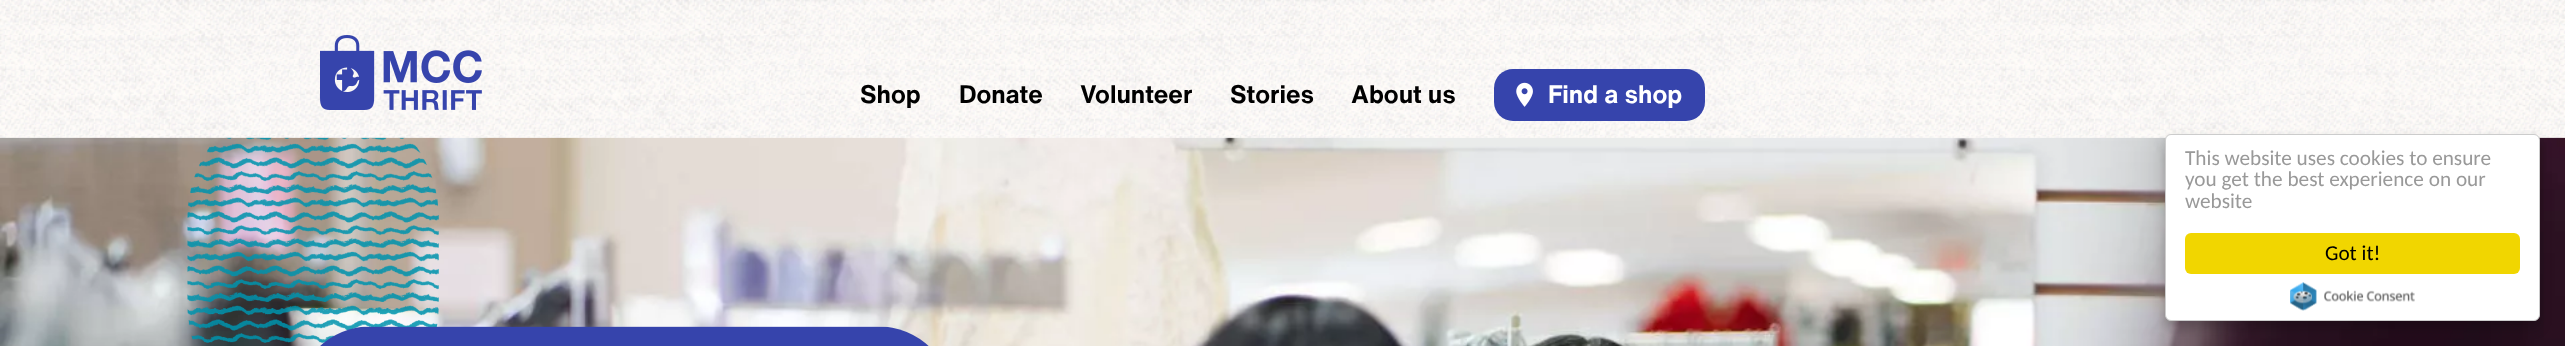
<!DOCTYPE html>
<meta charset="utf-8">
<style>body { margin: 0 } canvas { display: block }</style>
<canvas id="canvas" width="2565" height="346"></canvas>
<img id="img1" src="img_01.png" hidden>
<img id="img2" src="img_05.png" hidden>
<img id="img3" src="img_06.png" hidden>
<img id="img4" src="img_02.png" hidden>
<img id="img5" src="img_03.png" hidden>
<img id="img6" src="img_04.png" hidden>
<img id="img7" src="img_07.png" hidden>
<img id="img8" src="img_08.png" hidden>
<script>
window.onload = function () {
	const canvas = document.getElementById("canvas");
	const ctx = canvas.getContext("2d");
	ctx.miterLimit = 4;
	ctx.fontKerning = "normal";
	function txt(s, x, y) {
		ctx.fillText(s, x, y);
	}
	function fill(x, y, w, h) {
		ctx.fillRect(x, y, w, h);
	}
	function round(x, y, w, h, r) {
		ctx.beginPath();
		ctx.roundRect(x, y, w, h, r);
		ctx.fill();
	}
	function img(id, x, y, w, h) {
		ctx.drawImage(document.getElementById(id), x, y, w, h);
	}

	ctx.fillStyle = "#FFFFFF";
	fill(0, 0, 2565, 346);
	img("img1", 0, 0, 2565, 138);
	img("img2", 0, 137, 2565, 209);
	img("img3", 187, 137, 252, 206);
	img("img4", 0, 137, 2565, 1);
	img("img5", 320, 35, 162, 75);
	ctx.fillStyle = "#3644AC";
	round(1494, 69, 211, 52, 19);
	img("img6", 1516, 82, 17, 25);
	img("img7", 320, 326, 609, 20);
	ctx.fillStyle = "rgba(0, 0, 0, 0.2)";
	ctx.filter = "blur(6px)";
	ctx.beginPath();
	ctx.roundRect(2165, 140, 375, 188, 6);
	ctx.fill();
	ctx.filter = "none";
	ctx.fillStyle = "#FFFFFF";
	ctx.beginPath();
	ctx.roundRect(2165.5, 134.5, 374, 186, 5.5);
	ctx.fill();
	ctx.strokeStyle = "#CCCCCC";
	ctx.stroke();
	ctx.fillStyle = "#F1D600";
	round(2185, 233, 335, 41, 6);
	img("img8", 2290, 282, 125, 29);
	ctx.font = "bold 25px Helvetica";
	ctx.fillStyle = "#000000";
	txt("Shop", 860, 103);
	txt("Donate", 959, 103);
	txt("Volunteer", 1080, 103);
	txt("Stories", 1230, 103);
	txt("About us", 1351, 103);
	ctx.fillStyle = "#FFFFFF";
	txt("Find a shop", 1548, 103);
	ctx.font = "21.25px Carlito";
	ctx.fillStyle = "#999999";
	txt("This website uses cookies to ensure", 2185, 165);
	txt("you get the best experience on our", 2185, 186);
	txt("website", 2185, 208);
	ctx.fillStyle = "#000000";
	txt("Got it!", 2325, 260);
};
</script>
